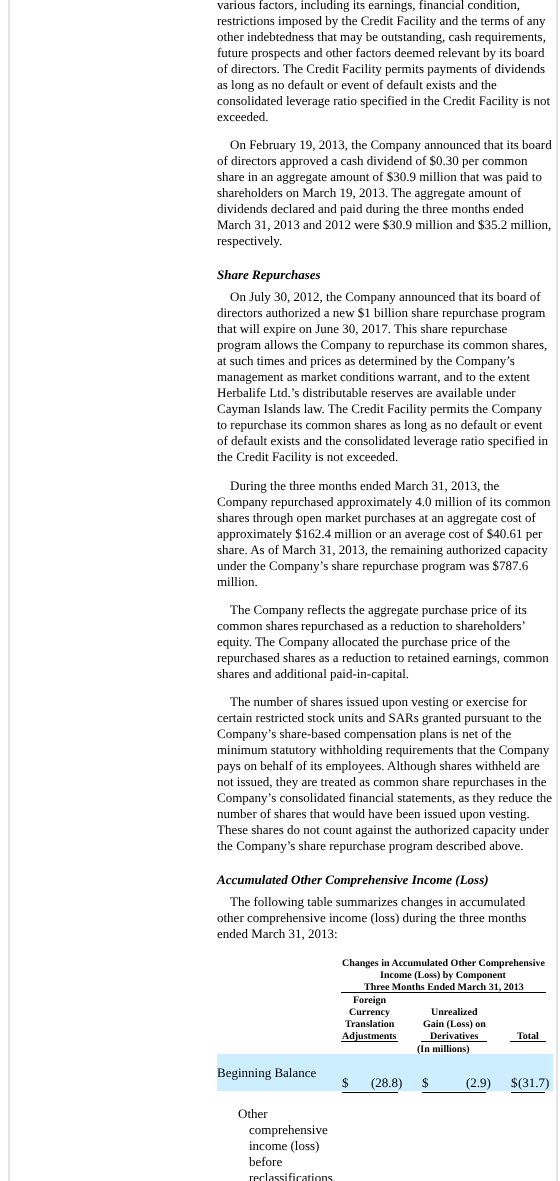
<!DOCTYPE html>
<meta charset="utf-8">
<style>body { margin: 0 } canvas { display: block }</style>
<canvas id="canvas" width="560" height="1181"></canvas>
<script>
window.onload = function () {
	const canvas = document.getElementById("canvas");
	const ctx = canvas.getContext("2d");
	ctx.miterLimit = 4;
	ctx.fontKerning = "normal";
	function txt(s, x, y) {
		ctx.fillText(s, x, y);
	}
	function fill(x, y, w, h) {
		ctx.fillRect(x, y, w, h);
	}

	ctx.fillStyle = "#FFFFFF";
	fill(0, 0, 560, 1181);
	ctx.strokeStyle = "#E3E3E3";
	ctx.lineWidth = 2;
	ctx.strokeRect(9, -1, 548, 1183);
	ctx.fillStyle = "#000000";
	fill(341, 992, 205, 1);
	fill(341, 1041, 57, 1);
	fill(421, 1041, 66, 1);
	fill(510, 1041, 36, 1);
	ctx.fillStyle = "#CCEEFF";
	fill(217, 1054, 336, 37);
	ctx.fillStyle = "#000000";
	fill(342, 1092, 56, 1);
	fill(422, 1092, 64, 1);
	fill(511, 1092, 34, 1);
	ctx.font = "13px Liberation Serif";
	txt("various factors, including its earnings, financial condition,", 217, 9);
	txt("restrictions imposed by the Credit Facility and the terms of any", 217, 25);
	txt("other indebtedness that may be outstanding, cash requirements,", 217, 41);
	txt("future prospects and other factors deemed relevant by its board", 217, 57);
	txt("of directors. The Credit Facility permits payments of dividends", 217, 73);
	txt("as long as no default or event of default exists and the", 217, 89);
	txt("consolidated leverage ratio specified in the Credit Facility is not", 217, 105);
	txt("exceeded.", 217, 121);
	txt("On February 19, 2013, the Company announced that its board", 230, 149);
	txt("of directors approved a cash dividend of $0.30 per common", 217, 165);
	txt("share in an aggregate amount of $30.9 million that was paid to", 217, 181);
	txt("shareholders on March 19, 2013. The aggregate amount of", 217, 197);
	txt("dividends declared and paid during the three months ended", 217, 213);
	txt("March 31, 2013 and 2012 were $30.9 million and $35.2 million,", 217, 229);
	txt("respectively.", 217, 245);
	ctx.font = "italic bold 13px Liberation Serif";
	txt("Share Repurchases", 217, 279);
	ctx.font = "13px Liberation Serif";
	txt("On July 30, 2012, the Company announced that its board of", 230, 301);
	txt("directors authorized a new $1 billion share repurchase program", 217, 317);
	txt("that will expire on June 30, 2017. This share repurchase", 217, 333);
	txt("program allows the Company to repurchase its common shares,", 217, 349);
	txt("at such times and prices as determined by the Company’s", 217, 365);
	txt("management as market conditions warrant, and to the extent", 217, 381);
	txt("Herbalife Ltd.’s distributable reserves are available under", 217, 397);
	txt("Cayman Islands law. The Credit Facility permits the Company", 217, 413);
	txt("to repurchase its common shares as long as no default or event", 217, 429);
	txt("of default exists and the consolidated leverage ratio specified in", 217, 445);
	txt("the Credit Facility is not exceeded.", 217, 461);
	txt("During the three months ended March 31, 2013, the", 230, 490);
	txt("Company repurchased approximately 4.0 million of its common", 217, 506);
	txt("shares through open market purchases at an aggregate cost of", 217, 522);
	txt("approximately $162.4 million or an average cost of $40.61 per", 217, 538);
	txt("share. As of March 31, 2013, the remaining authorized capacity", 217, 554);
	txt("under the Company’s share repurchase program was $787.6", 217, 570);
	txt("million.", 217, 586);
	txt("The Company reflects the aggregate purchase price of its", 230, 614);
	txt("common shares", 217, 630);
	txt("repurchased as a reduction to shareholders’", 301, 630);
	txt("equity. The Company allocated the purchase price of the", 217, 646);
	txt("repurchased shares as a reduction to retained earnings, common", 217, 662);
	txt("shares and additional paid-in-capital.", 217, 678);
	txt("The number of shares issued upon vesting or exercise for", 230, 706);
	txt("certain restricted stock units and SARs granted pursuant to the", 217, 722);
	txt("Company’s share-based compensation plans is net of the", 217, 738);
	txt("minimum statutory withholding requirements that the Company", 217, 754);
	txt("pays on behalf of its employees. Although shares withheld are", 217, 770);
	txt("not issued, they are treated as common share repurchases in the", 217, 786);
	txt("Company’s consolidated financial statements, as they reduce the", 217, 802);
	txt("number of shares that would have been issued upon vesting.", 217, 818);
	txt("These shares do not count against the authorized capacity under", 217, 834);
	txt("the Company’s share repurchase program described above.", 217, 850);
	ctx.font = "italic bold 13px Liberation Serif";
	txt("Accumulated Other Comprehensive Income (Loss)", 217, 884);
	ctx.font = "13px Liberation Serif";
	txt("The following table summarizes changes in accumulated", 230, 906);
	txt("other comprehensive income (loss) during the three months", 217, 922);
	txt("ended March 31, 2013:", 217, 938);
	ctx.font = "bold 10px Liberation Serif";
	txt("Changes in Accumulated Other Comprehensive", 342, 966);
	txt("Income (Loss) by Component", 380, 978);
	txt("Three Months Ended March 31, 2013", 364, 990);
	txt("Foreign", 353, 1003);
	txt("Currency", 349, 1015);
	txt("Translation", 345, 1027);
	txt("Adjustments", 342, 1039);
	txt("Unrealized", 431, 1015);
	txt("Gain (Loss) on", 423, 1027);
	txt("Derivatives", 430, 1039);
	txt("Total", 517, 1039);
	txt("(In millions)", 417, 1052);
	ctx.font = "13px Liberation Serif";
	txt("Beginning Balance", 217, 1077);
	txt("$", 342, 1087);
	txt("(28.8)", 371, 1087);
	txt("$", 422, 1087);
	txt("(2.9)", 466, 1087);
	txt("$", 511, 1087);
	txt("(31.7)", 518, 1087);
	txt("Other", 238, 1118);
	txt("comprehensive", 249, 1134);
	txt("income (loss)", 249, 1150);
	txt("before", 249, 1166);
	txt("reclassifications,", 249, 1182);
};
</script>
